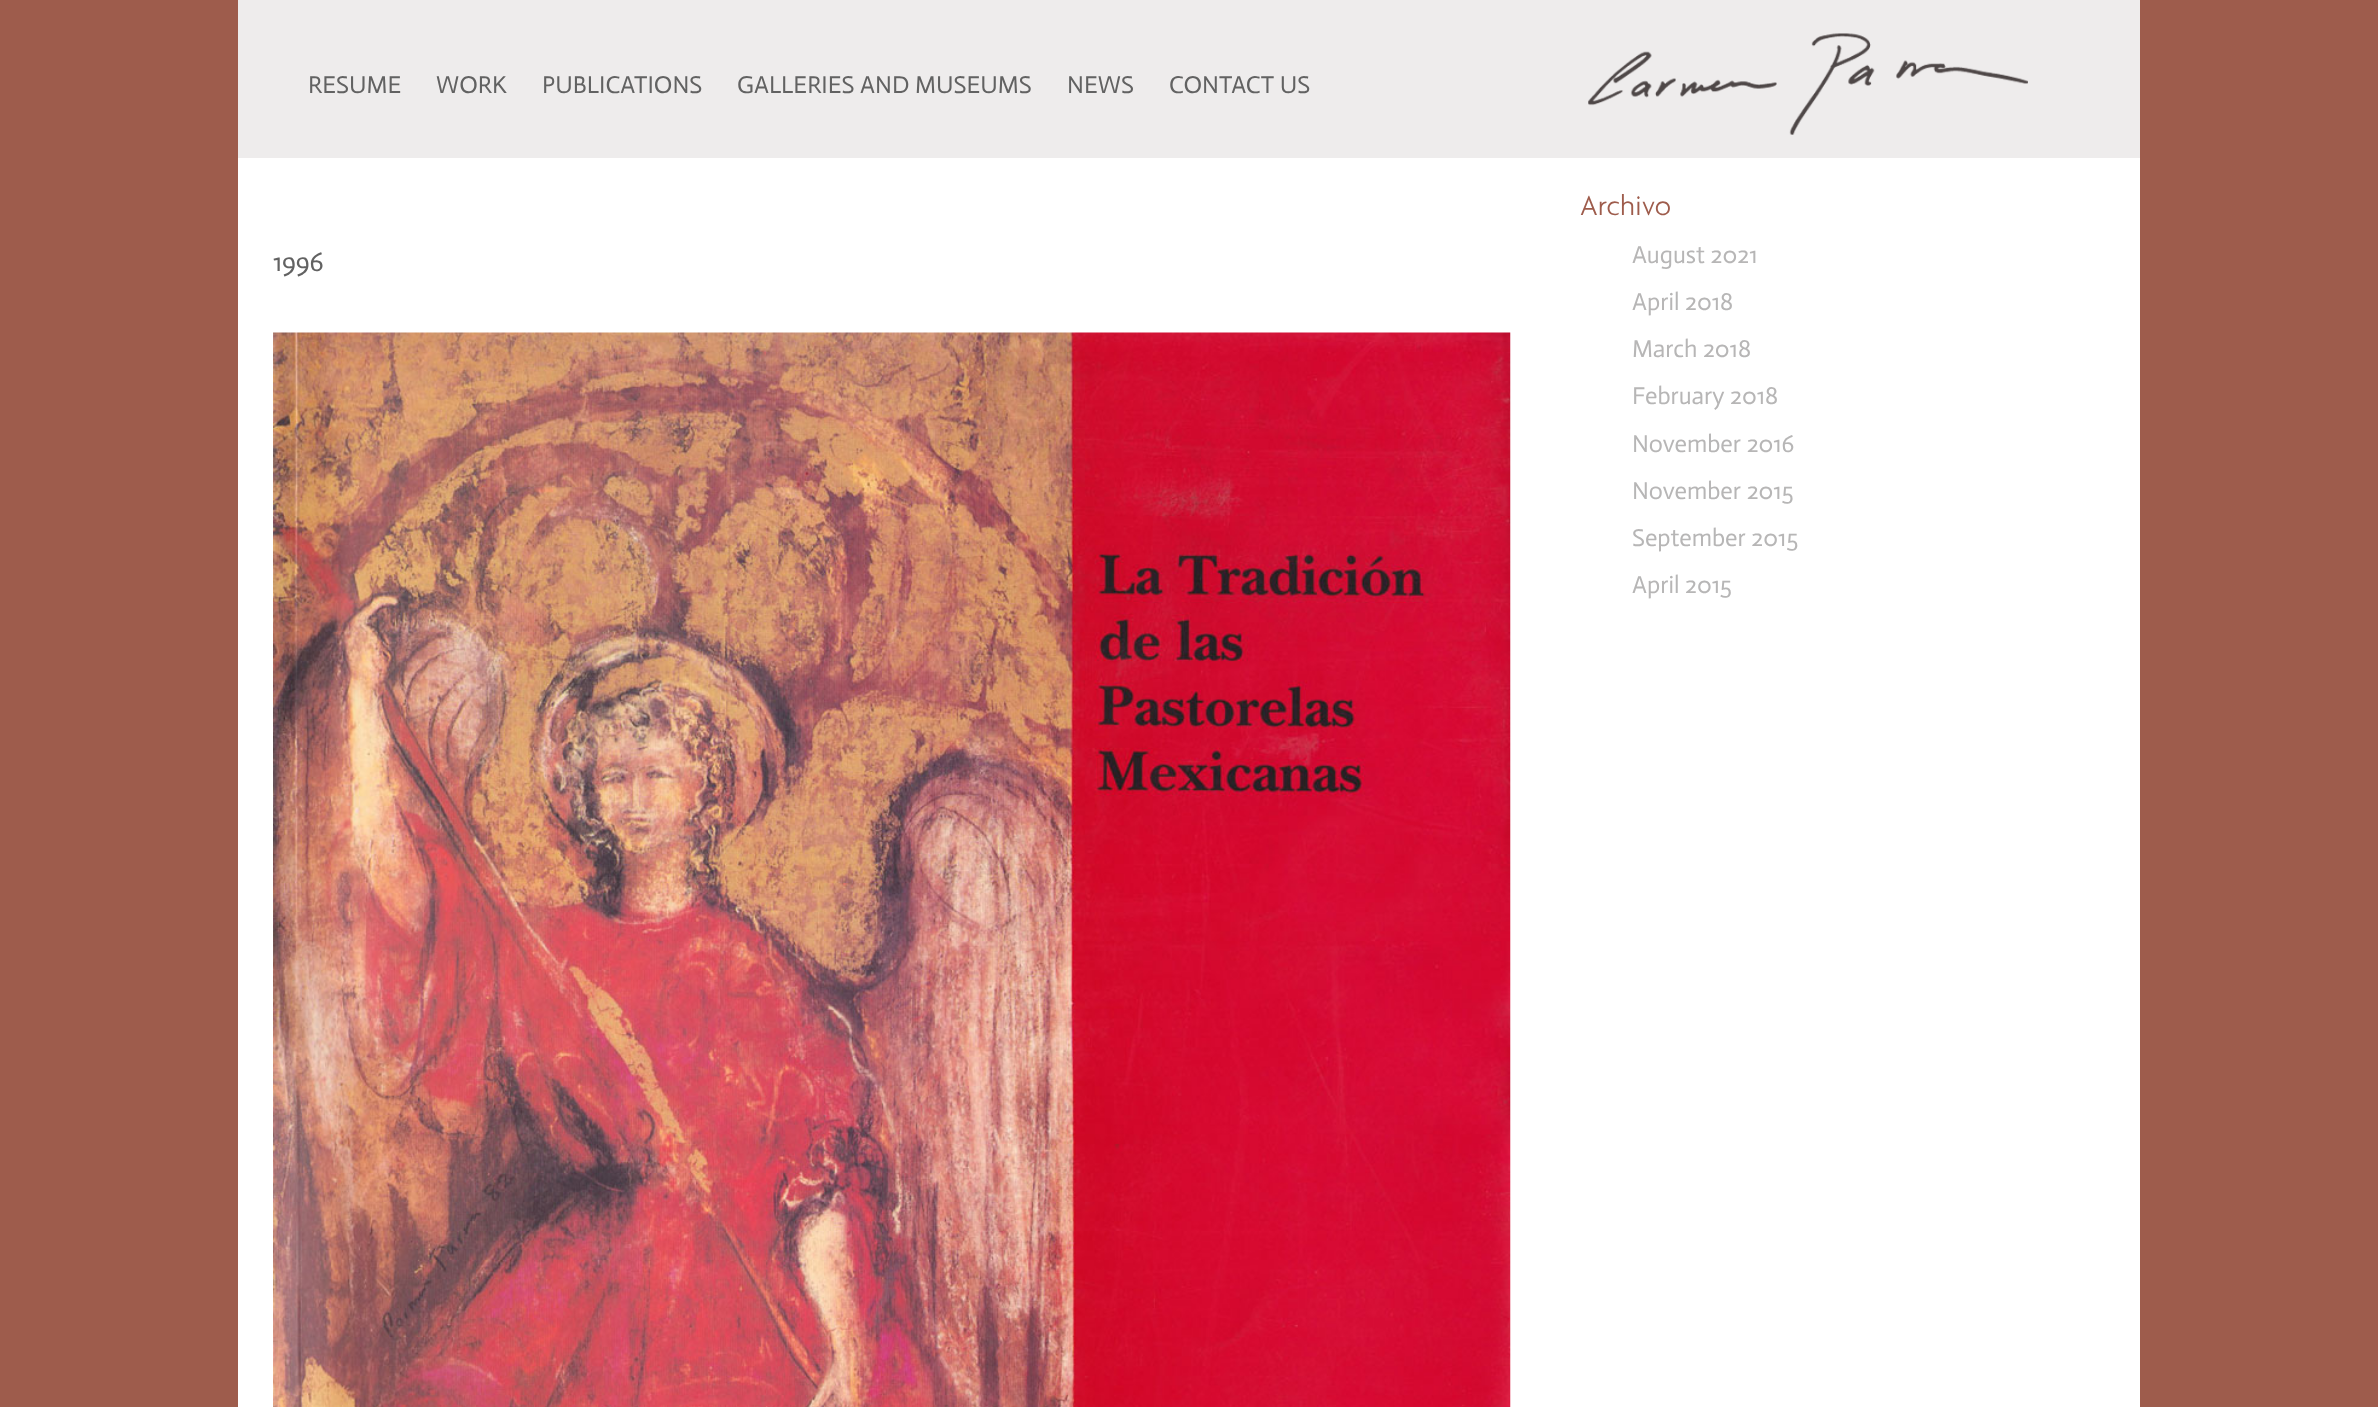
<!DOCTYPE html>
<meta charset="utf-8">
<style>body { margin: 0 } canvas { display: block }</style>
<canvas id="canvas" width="2378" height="1407"></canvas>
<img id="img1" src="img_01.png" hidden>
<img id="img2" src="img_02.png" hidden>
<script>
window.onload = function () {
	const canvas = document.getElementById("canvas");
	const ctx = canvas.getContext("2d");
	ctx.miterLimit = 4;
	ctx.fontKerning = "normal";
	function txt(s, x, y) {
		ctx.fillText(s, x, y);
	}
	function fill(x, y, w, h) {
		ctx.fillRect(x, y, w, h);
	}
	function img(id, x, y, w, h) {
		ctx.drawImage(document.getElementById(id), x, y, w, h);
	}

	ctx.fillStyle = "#9E5C4C";
	fill(0, 0, 2378, 1407);
	ctx.fillStyle = "#FFFFFF";
	fill(238, 158, 1902, 1249);
	ctx.fillStyle = "#EEECEC";
	fill(238, 0, 1902, 158);
	img("img1", 1588, 33, 440, 102);
	img("img2", 273, 332, 1238, 1075);
	ctx.font = "24.5px Actor";
	ctx.fillStyle = "#626262";
	txt("RESUME", 308, 93);
	txt("WORK", 436, 93);
	txt("PUBLICATIONS", 542, 93);
	txt("GALLERIES AND MUSEUMS", 737, 93);
	txt("NEWS", 1067, 93);
	txt("CONTACT US", 1169, 93);
	ctx.font = "27px Actor";
	txt("1996", 273, 271);
	ctx.font = "300 29.5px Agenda";
	ctx.fillStyle = "#9E5C4C";
	txt("Archivo", 1580, 215);
	ctx.font = "24.5px Actor";
	ctx.fillStyle = "#B7B6B6";
	txt("August 2021", 1632, 263);
	txt("April 2018", 1632, 310);
	txt("March 2018", 1632, 357);
	txt("February 2018", 1632, 404);
	txt("November 2016", 1632, 452);
	txt("November 2015", 1632, 499);
	txt("September 2015", 1632, 546);
	txt("April 2015", 1632, 593);
};
</script>
